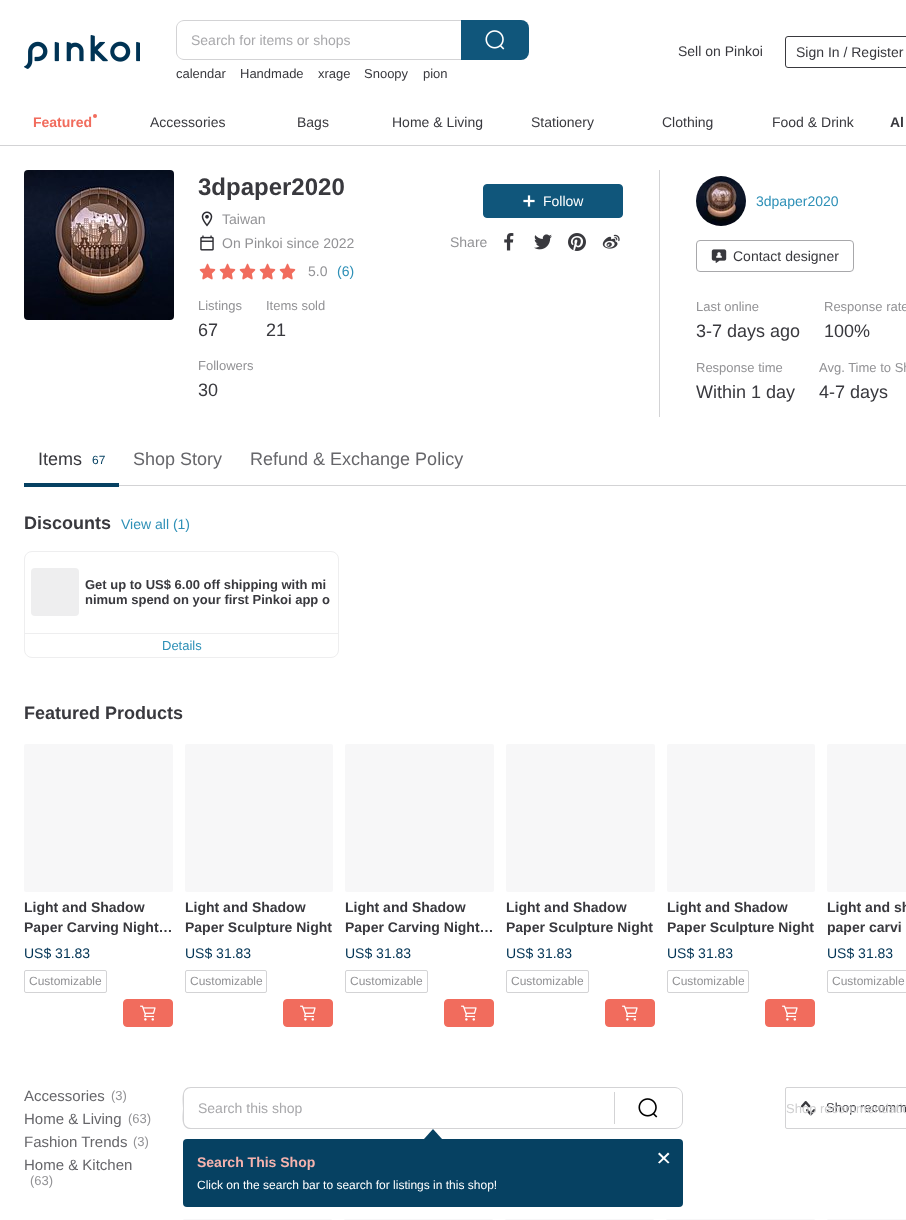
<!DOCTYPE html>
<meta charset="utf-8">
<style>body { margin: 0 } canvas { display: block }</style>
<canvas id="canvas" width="906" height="1220"></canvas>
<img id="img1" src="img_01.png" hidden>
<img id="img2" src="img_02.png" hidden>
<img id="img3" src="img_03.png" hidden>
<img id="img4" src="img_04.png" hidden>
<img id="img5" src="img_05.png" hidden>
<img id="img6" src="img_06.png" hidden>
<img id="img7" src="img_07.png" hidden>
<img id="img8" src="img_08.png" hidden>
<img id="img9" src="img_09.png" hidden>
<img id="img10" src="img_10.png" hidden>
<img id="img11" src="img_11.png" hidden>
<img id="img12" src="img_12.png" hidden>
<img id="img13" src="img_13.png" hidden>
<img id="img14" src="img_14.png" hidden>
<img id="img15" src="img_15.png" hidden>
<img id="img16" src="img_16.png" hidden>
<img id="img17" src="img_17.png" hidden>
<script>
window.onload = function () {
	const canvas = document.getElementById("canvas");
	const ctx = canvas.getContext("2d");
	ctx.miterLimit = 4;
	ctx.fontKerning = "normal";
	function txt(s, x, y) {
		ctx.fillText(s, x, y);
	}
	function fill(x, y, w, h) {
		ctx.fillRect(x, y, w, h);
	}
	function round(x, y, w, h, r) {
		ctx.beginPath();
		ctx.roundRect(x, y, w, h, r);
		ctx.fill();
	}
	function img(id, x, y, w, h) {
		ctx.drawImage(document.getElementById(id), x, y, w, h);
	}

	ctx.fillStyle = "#FFFFFF";
	fill(0, 0, 906, 1220);
	img("img1", 24, 35, 116, 34);
	ctx.fillStyle = "#D3D3D5";
	ctx.beginPath();
	ctx.moveTo(184, 20);
	ctx.lineTo(461, 20);
	ctx.lineTo(461, 60);
	ctx.lineTo(184, 60);
	ctx.bezierCurveTo(180, 60, 176, 56, 176, 52);
	ctx.lineTo(176, 28);
	ctx.bezierCurveTo(176, 24, 180, 20, 184, 20);
	ctx.closePath();
	ctx.moveTo(184, 21);
	ctx.lineTo(461, 21);
	ctx.lineTo(461, 59);
	ctx.lineTo(184, 59);
	ctx.bezierCurveTo(180, 59, 177, 56, 177, 52);
	ctx.lineTo(177, 28);
	ctx.bezierCurveTo(177, 24, 180, 21, 184, 21);
	ctx.closePath();
	ctx.fill("evenodd");
	ctx.fillStyle = "#10567B";
	ctx.beginPath();
	ctx.roundRect(461, 20, 68, 40, [0, 8, 8, 0]);
	ctx.fill();
	img("img2", 485, 30, 20, 20);
	ctx.beginPath();
	ctx.roundRect(785.5, 36.5, 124, 31, 2.5);
	ctx.strokeStyle = "#39393E";
	ctx.stroke();
	ctx.fillStyle = "#D3D3D5";
	fill(0, 145, 906, 1);
	ctx.fillStyle = "#F16C5D";
	ctx.beginPath();
	ctx.arc(95, 116, 2, 0, Math.PI * 2);
	ctx.fill();
	img("img3", 24, 170, 150, 150);
	img("img4", 24, 170, 150, 150);
	img("img5", 201, 211, 12, 16);
	img("img6", 200, 235, 14, 16);
	img("img7", 199, 263, 17, 17);
	img("img7", 219, 263, 17, 17);
	img("img7", 239, 263, 17, 17);
	img("img7", 259, 263, 17, 17);
	img("img7", 279, 263, 17, 17);
	ctx.fillStyle = "#10567B";
	ctx.beginPath();
	ctx.roundRect(483.5, 184.5, 139, 33, 3.5);
	ctx.fill();
	ctx.strokeStyle = "#10567B";
	ctx.stroke();
	img("img8", 523, 195, 12, 12);
	img("img9", 504, 233, 10, 18);
	img("img10", 534, 234, 18, 16);
	img("img11", 568, 233, 18, 18);
	img("img12", 602, 234, 18, 15);
	ctx.fillStyle = "#D3D3D5";
	fill(659, 170, 1, 247);
	img("img13", 696, 176, 50, 50);
	ctx.beginPath();
	ctx.roundRect(696.5, 240.5, 157, 31, 3.5);
	ctx.strokeStyle = "#A8A8AB";
	ctx.stroke();
	img("img14", 711, 249, 16, 14);
	fill(119, 485, 787, 1);
	ctx.fillStyle = "#064162";
	fill(24, 483, 95, 4);
	ctx.beginPath();
	ctx.roundRect(24.5, 551.5, 314, 106, 7.5);
	ctx.strokeStyle = "#EEEEEF";
	ctx.stroke();
	ctx.fillStyle = "#EEEEEF";
	round(31, 568, 48, 48, 4);
	fill(25, 633, 313, 1);
	ctx.fillStyle = "#F7F7F8";
	round(24, 744, 149, 148, 2);
	ctx.beginPath();
	ctx.roundRect(24.5, 970.5, 82, 22, 1.5);
	ctx.strokeStyle = "#D3D3D5";
	ctx.stroke();
	ctx.fillStyle = "#F16C5D";
	ctx.beginPath();
	ctx.roundRect(123.5, 999.5, 49, 27, 3.5);
	ctx.fill();
	ctx.strokeStyle = "#F16C5D";
	ctx.stroke();
	img("img15", 140, 1005, 16, 16);
	ctx.fillStyle = "#F7F7F8";
	round(185, 744, 148, 148, 2);
	ctx.beginPath();
	ctx.roundRect(185.5, 970.5, 81, 22, 1.5);
	ctx.strokeStyle = "#D3D3D5";
	ctx.stroke();
	ctx.fillStyle = "#F16C5D";
	ctx.beginPath();
	ctx.roundRect(283.5, 999.5, 49, 27, 3.5);
	ctx.fill();
	ctx.strokeStyle = "#F16C5D";
	ctx.stroke();
	img("img15", 300, 1005, 16, 16);
	ctx.fillStyle = "#F7F7F8";
	round(345, 744, 149, 148, 2);
	ctx.beginPath();
	ctx.roundRect(345.5, 970.5, 82, 22, 1.5);
	ctx.strokeStyle = "#D3D3D5";
	ctx.stroke();
	ctx.fillStyle = "#F16C5D";
	ctx.beginPath();
	ctx.roundRect(444.5, 999.5, 49, 27, 3.5);
	ctx.fill();
	ctx.strokeStyle = "#F16C5D";
	ctx.stroke();
	img("img15", 461, 1005, 16, 16);
	ctx.fillStyle = "#F7F7F8";
	round(506, 744, 149, 148, 2);
	ctx.beginPath();
	ctx.roundRect(506.5, 970.5, 82, 22, 1.5);
	ctx.strokeStyle = "#D3D3D5";
	ctx.stroke();
	ctx.fillStyle = "#F16C5D";
	ctx.beginPath();
	ctx.roundRect(605.5, 999.5, 49, 27, 3.5);
	ctx.fill();
	ctx.strokeStyle = "#F16C5D";
	ctx.stroke();
	img("img15", 622, 1005, 16, 16);
	ctx.fillStyle = "#F7F7F8";
	round(667, 744, 148, 148, 2);
	ctx.beginPath();
	ctx.roundRect(667.5, 970.5, 81, 22, 1.5);
	ctx.strokeStyle = "#D3D3D5";
	ctx.stroke();
	ctx.fillStyle = "#F16C5D";
	ctx.beginPath();
	ctx.roundRect(765.5, 999.5, 49, 27, 3.5);
	ctx.fill();
	ctx.strokeStyle = "#F16C5D";
	ctx.stroke();
	img("img15", 782, 1005, 16, 16);
	ctx.fillStyle = "#F7F7F8";
	round(827, 744, 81, 148, 2);
	ctx.beginPath();
	ctx.roundRect(827.5, 970.5, 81, 22, 1.5);
	ctx.strokeStyle = "#D3D3D5";
	ctx.stroke();
	ctx.fillStyle = "#D3D3D5";
	ctx.beginPath();
	ctx.moveTo(191, 1087);
	ctx.lineTo(615, 1087);
	ctx.lineTo(615, 1129);
	ctx.lineTo(189, 1129);
	ctx.bezierCurveTo(180, 1127, 183, 1114, 183, 1108);
	ctx.bezierCurveTo(183, 1101, 180, 1087, 191, 1087);
	ctx.closePath();
	ctx.moveTo(191, 1088);
	ctx.lineTo(615, 1088);
	ctx.lineTo(615, 1128);
	ctx.lineTo(191, 1128);
	ctx.bezierCurveTo(187, 1128, 184, 1125, 184, 1121);
	ctx.lineTo(184, 1095);
	ctx.bezierCurveTo(184, 1091, 187, 1088, 191, 1088);
	ctx.closePath();
	ctx.fill("evenodd");
	fill(614, 1092, 1, 32);
	ctx.beginPath();
	ctx.moveTo(615, 1087);
	ctx.lineTo(675, 1087);
	ctx.bezierCurveTo(679, 1087, 683, 1091, 683, 1095);
	ctx.lineTo(683, 1121);
	ctx.bezierCurveTo(683, 1125, 679, 1129, 675, 1129);
	ctx.lineTo(615, 1129);
	ctx.closePath();
	ctx.moveTo(615, 1088);
	ctx.lineTo(675, 1088);
	ctx.bezierCurveTo(679, 1088, 682, 1091, 682, 1095);
	ctx.lineTo(682, 1121);
	ctx.bezierCurveTo(682, 1125, 679, 1128, 675, 1128);
	ctx.lineTo(615, 1128);
	ctx.closePath();
	ctx.fill("evenodd");
	img("img16", 638, 1098, 20, 20);
	ctx.fillStyle = "#064162";
	round(183, 1139, 500, 68, 4);
	ctx.beginPath();
	ctx.moveTo(442, 1139);
	ctx.lineTo(424, 1139);
	ctx.lineTo(433, 1129);
	ctx.closePath();
	ctx.fill();
	ctx.fillStyle = "#FFFFFF";
	ctx.beginPath();
	ctx.moveTo(659.5, 1152.5);
	ctx.lineTo(669.5, 1162.5);
	ctx.lineTo(668, 1163.5);
	ctx.lineTo(658, 1154);
	ctx.closePath();
	ctx.fill();
	ctx.beginPath();
	ctx.moveTo(658, 1162.5);
	ctx.lineTo(668, 1152.5);
	ctx.lineTo(669.5, 1154);
	ctx.lineTo(659.5, 1163.5);
	ctx.closePath();
	ctx.fill();
	ctx.beginPath();
	ctx.roundRect(785.5, 1087.5, 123, 41, 1.5);
	ctx.stroke();
	img("img17", 801, 1101, 15, 15);
	ctx.fillStyle = "#F7F7F8";
	round(183, 1219, 149, 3, 2);
	round(344, 1219, 149, 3, 2);
	round(505, 1219, 149, 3, 2);
	round(666, 1219, 149, 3, 2);
	round(827, 1219, 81, 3, 2);
	ctx.font = "14px Liberation Sans";
	ctx.fillStyle = "#A8A8AB";
	txt("Search for items or shops", 191, 45);
	ctx.font = "13px Liberation Sans";
	ctx.fillStyle = "#39393E";
	txt("calendar", 176, 78);
	txt("Handmade", 240, 78);
	txt("xrage", 318, 78);
	txt("Snoopy", 364, 78);
	txt("pion", 423, 78);
	ctx.font = "14px Liberation Sans";
	txt("Sell on Pinkoi", 678, 56);
	txt("Sign In / Register", 796, 57);
	ctx.font = "bold 14px Liberation Sans";
	ctx.fillStyle = "#F16C5D";
	txt("Featured", 33, 127);
	ctx.font = "14px Liberation Sans";
	ctx.fillStyle = "#39393E";
	txt("Accessories", 150, 127);
	txt("Bags", 297, 127);
	txt("Home & Living", 392, 127);
	txt("Stationery", 531, 127);
	txt("Clothing", 662, 127);
	txt("Food & Drink", 772, 127);
	ctx.font = "bold 14px Liberation Sans";
	txt("Al", 890, 127);
	ctx.font = "bold 24px Liberation Sans";
	txt("3dpaper2020", 198, 195);
	ctx.font = "14px Liberation Sans";
	ctx.fillStyle = "#929295";
	txt("Taiwan", 222, 224);
	txt("On Pinkoi since 2022", 222, 248);
	txt("5.0", 308, 276);
	ctx.fillStyle = "#2E90B7";
	txt("(6)", 337, 276);
	ctx.font = "13px Liberation Sans";
	ctx.fillStyle = "#929295";
	txt("Listings", 198, 310);
	ctx.font = "18px Liberation Sans";
	ctx.fillStyle = "#39393E";
	txt("67", 198, 336);
	ctx.font = "13px Liberation Sans";
	ctx.fillStyle = "#929295";
	txt("Items sold", 266, 310);
	ctx.font = "18px Liberation Sans";
	ctx.fillStyle = "#39393E";
	txt("21", 266, 336);
	ctx.font = "13px Liberation Sans";
	ctx.fillStyle = "#929295";
	txt("Followers", 198, 370);
	ctx.font = "18px Liberation Sans";
	ctx.fillStyle = "#39393E";
	txt("30", 198, 396);
	ctx.font = "14px Liberation Sans";
	ctx.fillStyle = "#FFFFFF";
	txt("Follow", 543, 206);
	ctx.fillStyle = "#929295";
	txt("Share", 450, 247);
	ctx.fillStyle = "#2E90B7";
	txt("3dpaper2020", 756, 206);
	ctx.fillStyle = "#39393E";
	txt("Contact designer", 733, 261);
	ctx.font = "13px Liberation Sans";
	ctx.fillStyle = "#929295";
	txt("Last online", 696, 311);
	ctx.font = "18px Liberation Sans";
	ctx.fillStyle = "#39393E";
	txt("3-7 days ago", 696, 337);
	ctx.font = "13px Liberation Sans";
	ctx.fillStyle = "#929295";
	txt("Response rate", 824, 311);
	ctx.font = "18px Liberation Sans";
	ctx.fillStyle = "#39393E";
	txt("100%", 824, 337);
	ctx.font = "13px Liberation Sans";
	ctx.fillStyle = "#929295";
	txt("Response time", 696, 372);
	ctx.font = "18px Liberation Sans";
	ctx.fillStyle = "#39393E";
	txt("Within 1 day", 696, 398);
	ctx.font = "13px Liberation Sans";
	ctx.fillStyle = "#929295";
	txt("Avg. Time to Sh", 819, 372);
	ctx.font = "18px Liberation Sans";
	ctx.fillStyle = "#39393E";
	txt("4-7 days", 819, 398);
	txt("Items", 38, 465);
	ctx.font = "12px Liberation Sans";
	ctx.fillStyle = "#064162";
	txt("67", 92, 464);
	ctx.font = "18px Liberation Sans";
	ctx.fillStyle = "#66666A";
	txt("Shop Story", 133, 465);
	txt("Refund & Exchange Policy", 250, 465);
	ctx.font = "bold 18px Liberation Sans";
	ctx.fillStyle = "#39393E";
	txt("Discounts", 24, 529);
	ctx.font = "14px Liberation Sans";
	ctx.fillStyle = "#2E90B7";
	txt("View all (1)", 121, 529);
	ctx.font = "bold 13px Liberation Sans";
	ctx.fillStyle = "#39393E";
	txt("Get up to US$ 6.00 off shipping with mi", 85, 589);
	txt("nimum spend on your first Pinkoi app o", 85, 604);
	ctx.font = "13px Liberation Sans";
	ctx.fillStyle = "#2E90B7";
	txt("Details", 162, 650);
	ctx.font = "bold 18px Liberation Sans";
	ctx.fillStyle = "#39393E";
	txt("Featured Products", 24, 719);
	ctx.font = "bold 14px Liberation Sans";
	txt("Light and Shadow", 24, 912);
	txt("Paper Carving Night…", 24, 932);
	ctx.font = "14px Liberation Sans";
	ctx.fillStyle = "#003354";
	txt("US$ 31.83", 24, 958);
	ctx.font = "12px Liberation Sans";
	ctx.fillStyle = "#929295";
	txt("Customizable", 29, 985);
	ctx.font = "bold 14px Liberation Sans";
	ctx.fillStyle = "#39393E";
	txt("Light and Shadow", 185, 912);
	txt("Paper Sculpture Night", 185, 932);
	ctx.font = "14px Liberation Sans";
	ctx.fillStyle = "#003354";
	txt("US$ 31.83", 185, 958);
	ctx.font = "12px Liberation Sans";
	ctx.fillStyle = "#929295";
	txt("Customizable", 190, 985);
	ctx.font = "bold 14px Liberation Sans";
	ctx.fillStyle = "#39393E";
	txt("Light and Shadow", 345, 912);
	txt("Paper Carving Night…", 345, 932);
	ctx.font = "14px Liberation Sans";
	ctx.fillStyle = "#003354";
	txt("US$ 31.83", 345, 958);
	ctx.font = "12px Liberation Sans";
	ctx.fillStyle = "#929295";
	txt("Customizable", 350, 985);
	ctx.font = "bold 14px Liberation Sans";
	ctx.fillStyle = "#39393E";
	txt("Light and Shadow", 506, 912);
	txt("Paper Sculpture Night", 506, 932);
	ctx.font = "14px Liberation Sans";
	ctx.fillStyle = "#003354";
	txt("US$ 31.83", 506, 958);
	ctx.font = "12px Liberation Sans";
	ctx.fillStyle = "#929295";
	txt("Customizable", 511, 985);
	ctx.font = "bold 14px Liberation Sans";
	ctx.fillStyle = "#39393E";
	txt("Light and Shadow", 667, 912);
	txt("Paper Sculpture Night", 667, 932);
	ctx.font = "14px Liberation Sans";
	ctx.fillStyle = "#003354";
	txt("US$ 31.83", 667, 958);
	ctx.font = "12px Liberation Sans";
	ctx.fillStyle = "#929295";
	txt("Customizable", 672, 985);
	ctx.font = "bold 14px Liberation Sans";
	ctx.fillStyle = "#39393E";
	txt("Light and sh", 827, 912);
	txt("paper carvi", 827, 932);
	ctx.font = "14px Liberation Sans";
	ctx.fillStyle = "#003354";
	txt("US$ 31.83", 827, 958);
	ctx.font = "12px Liberation Sans";
	ctx.fillStyle = "#929295";
	txt("Customizable", 832, 985);
	ctx.font = "15px Liberation Sans";
	ctx.fillStyle = "#66666A";
	txt("Accessories", 24, 1101);
	ctx.font = "13px Liberation Sans";
	ctx.fillStyle = "#929295";
	txt("(3)", 111, 1100);
	ctx.font = "15px Liberation Sans";
	ctx.fillStyle = "#66666A";
	txt("Home & Living", 24, 1124);
	ctx.font = "13px Liberation Sans";
	ctx.fillStyle = "#929295";
	txt("(63)", 128, 1123);
	ctx.font = "15px Liberation Sans";
	ctx.fillStyle = "#66666A";
	txt("Fashion Trends", 24, 1147);
	ctx.font = "13px Liberation Sans";
	ctx.fillStyle = "#929295";
	txt("(3)", 133, 1146);
	ctx.font = "15px Liberation Sans";
	ctx.fillStyle = "#66666A";
	txt("Home & Kitchen", 24, 1170);
	ctx.font = "13px Liberation Sans";
	ctx.fillStyle = "#929295";
	txt("(63)", 30, 1185);
	ctx.font = "14px Liberation Sans";
	ctx.fillStyle = "#A8A8AB";
	txt("Search this shop", 198, 1113);
	ctx.font = "bold 14px Liberation Sans";
	ctx.fillStyle = "#F5B3AE";
	txt("Search This Shop", 197, 1167);
	ctx.font = "12px Liberation Sans";
	ctx.fillStyle = "#FFFFFF";
	txt("Click on the search bar to search for listings in this shop!", 197, 1189);
	ctx.font = "13px Liberation Sans";
	ctx.fillStyle = "#39393E";
	txt("Shop recomm", 826, 1112);
	ctx.fillStyle = "#CFCFD0";
	txt("Shop recommendatio", 786, 1113);
};
</script>
